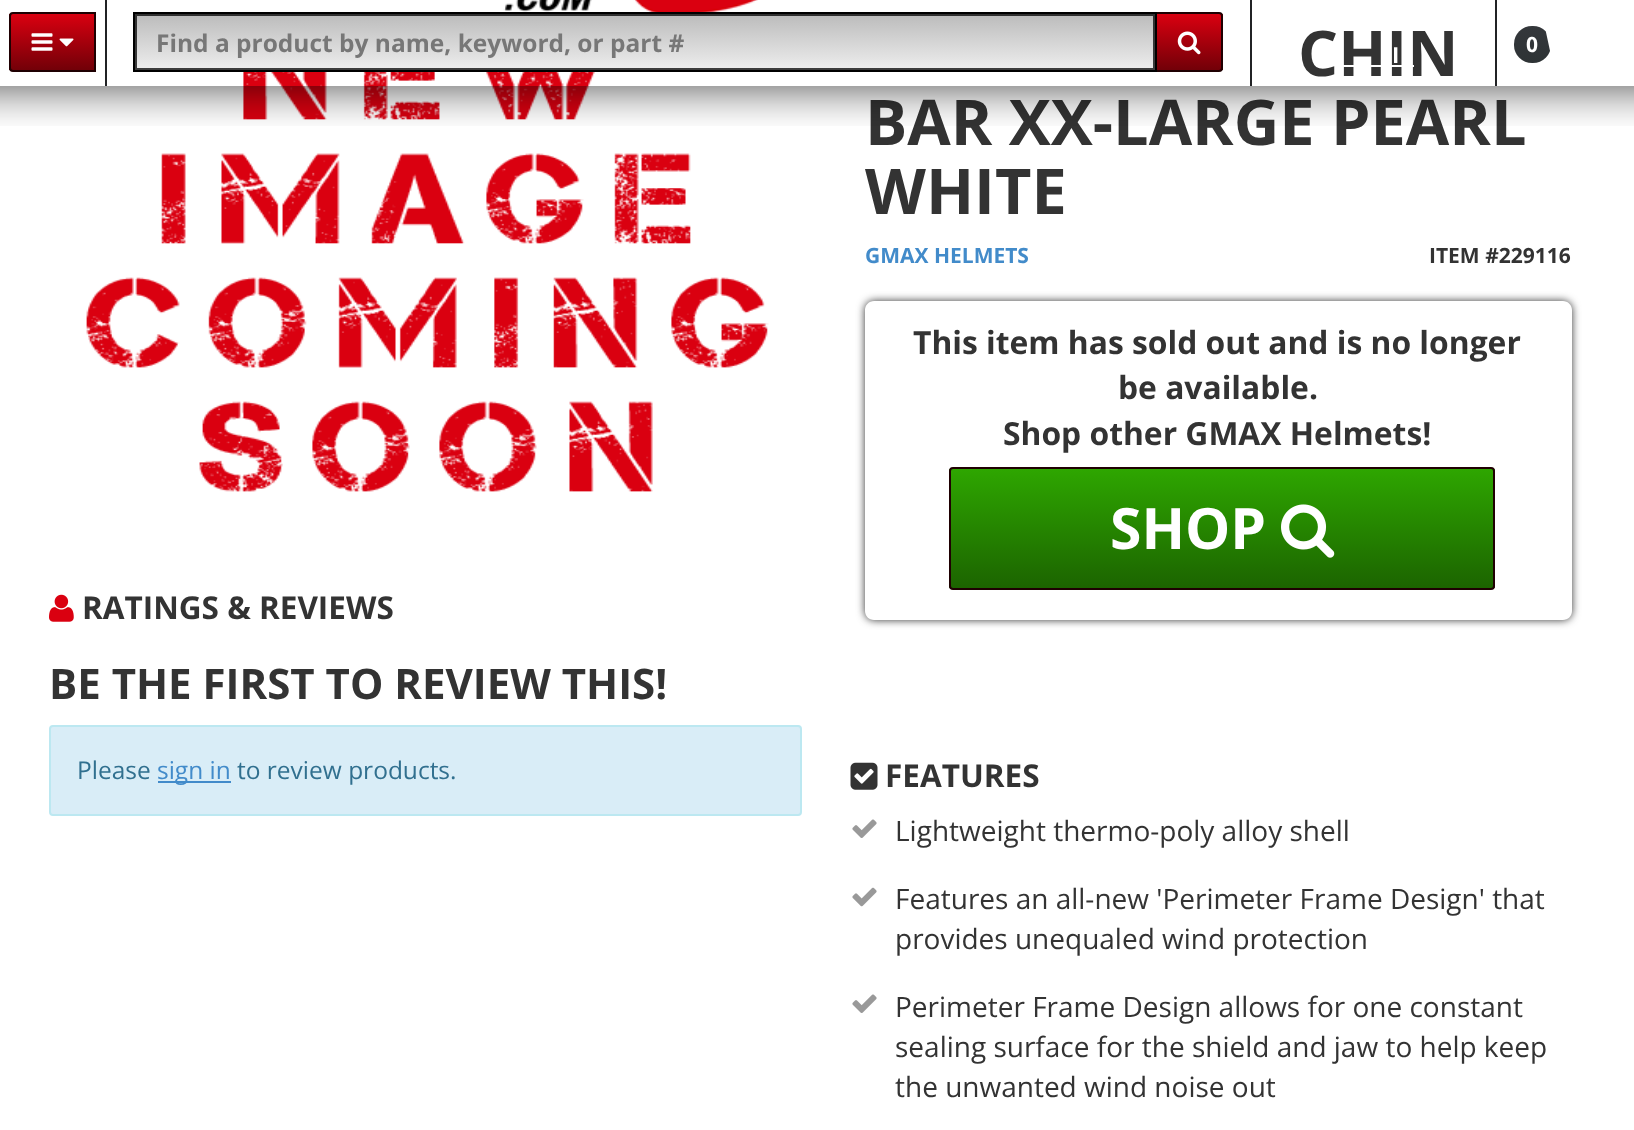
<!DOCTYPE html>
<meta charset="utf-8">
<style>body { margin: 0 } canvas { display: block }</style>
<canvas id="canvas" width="1634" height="1130"></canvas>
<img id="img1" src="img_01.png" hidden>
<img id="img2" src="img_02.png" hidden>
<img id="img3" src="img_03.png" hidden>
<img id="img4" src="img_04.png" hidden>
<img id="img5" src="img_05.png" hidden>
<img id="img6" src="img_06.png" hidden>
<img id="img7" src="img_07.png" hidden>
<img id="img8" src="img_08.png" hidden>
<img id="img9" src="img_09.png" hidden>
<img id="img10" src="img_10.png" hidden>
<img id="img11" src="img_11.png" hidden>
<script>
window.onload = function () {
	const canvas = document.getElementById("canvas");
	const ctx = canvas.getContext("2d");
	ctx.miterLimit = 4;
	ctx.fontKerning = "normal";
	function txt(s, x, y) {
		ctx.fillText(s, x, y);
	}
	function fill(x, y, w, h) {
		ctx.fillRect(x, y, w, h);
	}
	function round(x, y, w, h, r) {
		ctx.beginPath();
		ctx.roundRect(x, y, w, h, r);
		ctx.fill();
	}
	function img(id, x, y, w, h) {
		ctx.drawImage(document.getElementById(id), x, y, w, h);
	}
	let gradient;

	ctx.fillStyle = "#FFFFFF";
	fill(0, 0, 1634, 1130);
	img("img1", 86, 0, 683, 492);
	img("img2", 49, 594, 25, 28);
	ctx.fillStyle = "#D9EDF7";
	ctx.beginPath();
	ctx.roundRect(50, 726, 751, 89, 3);
	ctx.fill();
	ctx.strokeStyle = "#BCE8F1";
	ctx.lineWidth = 2;
	ctx.stroke();
	ctx.fillStyle = "#428BCA";
	fill(158, 781, 73, 2);
	ctx.save();
	ctx.beginPath();
	ctx.moveTo(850, 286);
	ctx.lineTo(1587, 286);
	ctx.lineTo(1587, 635);
	ctx.lineTo(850, 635);
	ctx.closePath();
	ctx.moveTo(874, 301);
	ctx.lineTo(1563, 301);
	ctx.bezierCurveTo(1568, 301, 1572, 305, 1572, 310);
	ctx.lineTo(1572, 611);
	ctx.bezierCurveTo(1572, 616, 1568, 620, 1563, 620);
	ctx.lineTo(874, 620);
	ctx.bezierCurveTo(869, 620, 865, 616, 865, 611);
	ctx.lineTo(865, 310);
	ctx.bezierCurveTo(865, 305, 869, 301, 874, 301);
	ctx.closePath();
	ctx.clip("evenodd");
	ctx.fillStyle = "#333333";
	ctx.filter = "blur(4.5px)";
	ctx.beginPath();
	ctx.roundRect(865, 301, 707, 319, 9);
	ctx.fill();
	ctx.filter = "none";
	ctx.restore();
	ctx.save();
	ctx.beginPath();
	ctx.roundRect(949, 467, 546, 123, 4);
	ctx.clip();
	gradient = ctx.createLinearGradient(1222, 469, 1222, 588);
	gradient.addColorStop(0, "#2EA600");
	gradient.addColorStop(1, "#1C6400");
	ctx.fillStyle = gradient;
	fill(949, 469, 546, 119);
	ctx.restore();
	ctx.beginPath();
	ctx.roundRect(950, 468, 544, 121, 3);
	ctx.strokeStyle = "#1F0002";
	ctx.stroke();
	img("img3", 1281, 504, 54, 54);
	img("img4", 850, 762, 28, 28);
	img("img5", 852, 819, 25, 19);
	img("img6", 852, 887, 25, 20);
	img("img5", 852, 994, 25, 19);
	gradient = ctx.createLinearGradient(52, 14, 53, 70);
	gradient.addColorStop(0, "#DA0010");
	gradient.addColorStop(1, "#720008");
	ctx.fillStyle = gradient;
	fill(9, 14, 85, 56);
	ctx.beginPath();
	ctx.roundRect(10, 13, 85, 58, [3, 0, 0, 3]);
	ctx.stroke();
	img("img7", 31, 33, 22, 18);
	img("img8", 59, 38, 15, 9);
	ctx.fillStyle = "#212325";
	fill(105, 0, 2, 86);
	gradient = ctx.createLinearGradient(645, 14, 645, 70);
	gradient.addColorStop(0, "#BBBBBB");
	gradient.addColorStop(1, "#EEEEEE");
	ctx.fillStyle = gradient;
	fill(135, 14, 1020, 56);
	ctx.strokeStyle = "rgba(0, 0, 0, 0.75)";
	ctx.strokeRect(136, 15, 1018, 54);
	gradient = ctx.createLinearGradient(1189, 14, 1189, 70);
	gradient.addColorStop(0, "#DA0010");
	gradient.addColorStop(1, "#720008");
	ctx.fillStyle = gradient;
	fill(1157, 14, 66, 56);
	ctx.beginPath();
	ctx.roundRect(1156, 13, 66, 58, [0, 3, 3, 0]);
	ctx.strokeStyle = "#1F0002";
	ctx.stroke();
	ctx.strokeStyle = "#000000";
	ctx.strokeRect(134, 13, 1022, 58);
	img("img9", 1177, 31, 24, 24);
	ctx.fillStyle = "#212325";
	fill(1495, 0, 2, 86);
	gradient = ctx.createLinearGradient(1532, 26, 1532, 63);
	gradient.addColorStop(0, "#34373B");
	gradient.addColorStop(1, "#2E3335");
	ctx.fillStyle = gradient;
	round(1514, 26, 37, 37, 18);
	img("img10", 1545, 30, 6, 21);
	ctx.fillStyle = "#212325";
	fill(1250, 0, 2, 86);
	ctx.font = "bold 31.5px Open Sans";
	ctx.fillStyle = "#333333";
	txt("RATINGS & REVIEWS", 82, 619);
	ctx.font = "bold 42px Open Sans";
	txt("BE THE FIRST TO REVIEW THIS!", 49, 699);
	ctx.font = "24.5px Open Sans";
	ctx.fillStyle = "#31708F";
	txt("Please", 77, 779);
	ctx.fillStyle = "#428BCA";
	txt("sign in", 157, 779);
	ctx.fillStyle = "#31708F";
	txt("to review products.", 237, 779);
	ctx.font = "bold 63px Open Sans";
	ctx.fillStyle = "#333333";
	txt("CHIN", 1298, 76);
	txt("BAR XX-LARGE PEARL", 865, 145);
	txt("WHITE", 865, 214);
	ctx.font = "bold 21px Open Sans";
	ctx.fillStyle = "#428BCA";
	txt("GMAX HELMETS", 865, 263);
	ctx.fillStyle = "#333333";
	txt("ITEM #229116", 1429, 263);
	ctx.font = "bold 31.8px Open Sans";
	txt("This item has sold out and is no longer", 913, 354);
	txt("be available.", 1118, 399);
	txt("Shop other GMAX Helmets!", 1003, 445);
	ctx.font = "bold 57px Open Sans";
	ctx.fillStyle = "#FFFFFF";
	txt("SHOP", 1110, 549);
	ctx.font = "bold 31.5px Open Sans";
	ctx.fillStyle = "#333333";
	txt("FEATURES", 885, 787);
	ctx.font = "28px Open Sans";
	txt("Lightweight thermo-poly alloy shell", 895, 841);
	txt("Features an all-new 'Perimeter Frame Design' that", 895, 909);
	txt("provides unequaled wind protection", 895, 949);
	txt("Perimeter Frame Design allows for one constant", 895, 1017);
	txt("sealing surface for the shield and jaw to help keep", 895, 1057);
	txt("the unwanted wind noise out", 895, 1097);
	ctx.font = "bold 24.5px Open Sans";
	ctx.fillStyle = "#777777";
	txt("Find a product by name, keyword, or part #", 156, 52);
	ctx.font = "bold 21px Open Sans";
	ctx.fillStyle = "#FFFFFF";
	txt("0", 1526, 52);
	ctx.font = "bold 22px Open Sans";
	txt("I", 1392, 63);
	fill(1341, 65, 73, 2);
	img("img11", 0, 86, 1634, 40);
};
</script>
